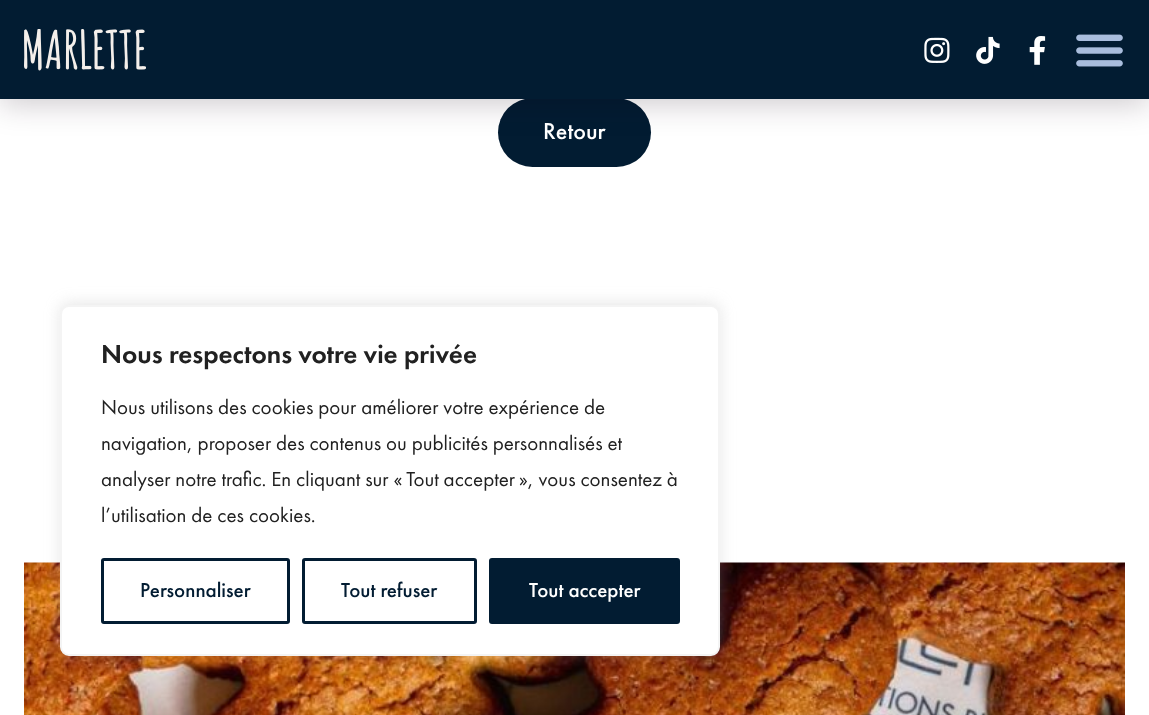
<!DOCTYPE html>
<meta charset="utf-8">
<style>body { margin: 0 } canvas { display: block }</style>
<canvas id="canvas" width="1149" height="715"></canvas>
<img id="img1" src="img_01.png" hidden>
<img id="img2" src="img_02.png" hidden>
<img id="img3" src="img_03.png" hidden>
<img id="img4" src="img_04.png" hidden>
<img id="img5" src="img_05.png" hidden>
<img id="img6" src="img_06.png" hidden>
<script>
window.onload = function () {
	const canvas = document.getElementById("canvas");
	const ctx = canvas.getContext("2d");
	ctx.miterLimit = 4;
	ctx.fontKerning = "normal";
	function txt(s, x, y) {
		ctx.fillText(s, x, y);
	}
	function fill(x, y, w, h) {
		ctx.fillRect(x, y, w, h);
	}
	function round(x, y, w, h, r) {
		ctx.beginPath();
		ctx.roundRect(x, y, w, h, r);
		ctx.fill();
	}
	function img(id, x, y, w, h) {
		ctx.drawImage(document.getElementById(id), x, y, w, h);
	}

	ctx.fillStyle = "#FFFFFF";
	fill(0, 0, 1149, 715);
	ctx.fillStyle = "#021C32";
	round(498, 98, 153, 69, 34.5);
	ctx.fillStyle = "rgba(20, 0, 20, 0.2)";
	ctx.filter = "blur(15px)";
	ctx.beginPath();
	ctx.rect(0, 6, 1149, 99);
	ctx.fill();
	ctx.filter = "none";
	ctx.fillStyle = "#021C32";
	fill(0, 0, 1149, 99);
	img("img1", 24, 29, 122, 42);
	img("img2", 924, 37, 26, 26);
	img("img3", 976, 36, 24, 28);
	img("img4", 1029, 36, 17, 29);
	img("img5", 1076, 34, 47, 33);
	img("img6", 24, 562, 1101, 153);
	ctx.fillStyle = "rgba(172, 171, 171, 0.3)";
	ctx.filter = "blur(7.5px)";
	ctx.beginPath();
	ctx.roundRect(60, 303, 660, 351, 9);
	ctx.fill();
	ctx.filter = "none";
	ctx.fillStyle = "#FFFFFF";
	ctx.beginPath();
	ctx.roundRect(61, 306, 658, 349, 8);
	ctx.fill();
	ctx.strokeStyle = "#F4F4F4";
	ctx.lineWidth = 2;
	ctx.stroke();
	ctx.beginPath();
	ctx.roundRect(102.5, 559.5, 186, 63, 1.5);
	ctx.strokeStyle = "#021C32";
	ctx.lineWidth = 3;
	ctx.stroke();
	ctx.beginPath();
	ctx.roundRect(303.5, 559.5, 172, 63, 1.5);
	ctx.stroke();
	ctx.fillStyle = "#021C32";
	ctx.beginPath();
	ctx.roundRect(490.5, 559.5, 188, 63, 1.5);
	ctx.fill();
	ctx.stroke();
	ctx.font = "500 24px Futura PT";
	ctx.fillStyle = "#FFFFFF";
	txt("Retour", 543, 139);
	ctx.font = "500 27px 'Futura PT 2'";
	ctx.fillStyle = "#212121";
	txt("Nous respectons votre vie privée", 101, 363);
	ctx.font = "21px Futura PT";
	txt("Nous utilisons des cookies pour améliorer votre expérience de", 101, 414);
	txt("navigation, proposer des contenus ou publicités personnalisés et", 101, 450);
	txt("analyser notre trafic. En cliquant sur « Tout accepter », vous consentez à", 101, 486);
	txt("l’utilisation de ces cookies.", 101, 522);
	ctx.font = "500 21px Futura PT";
	ctx.fillStyle = "#021C32";
	txt("Personnaliser", 140, 597);
	txt("Tout refuser", 341, 597);
	ctx.fillStyle = "#FFFFFF";
	txt("Tout accepter", 529, 597);
};
</script>
